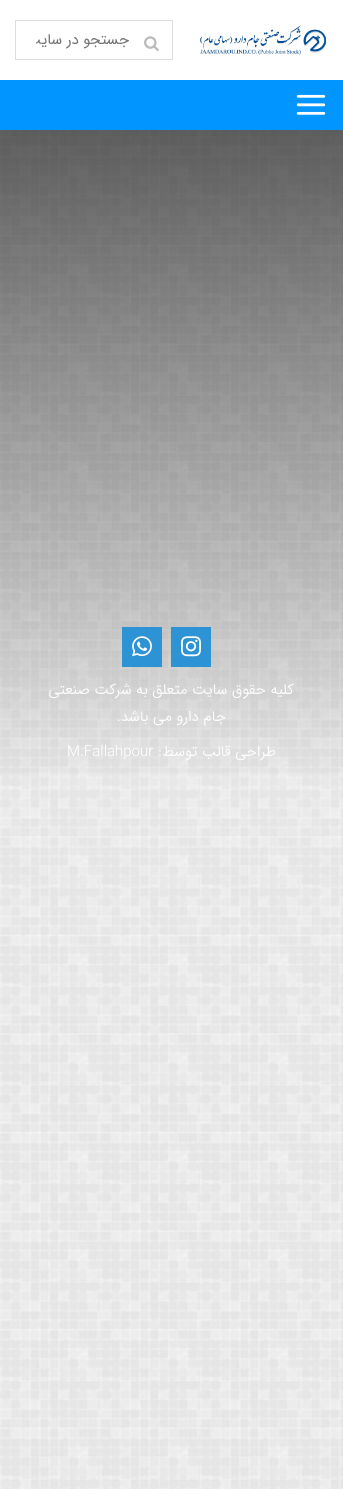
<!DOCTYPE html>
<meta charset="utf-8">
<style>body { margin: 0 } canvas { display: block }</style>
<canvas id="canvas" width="343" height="1489"></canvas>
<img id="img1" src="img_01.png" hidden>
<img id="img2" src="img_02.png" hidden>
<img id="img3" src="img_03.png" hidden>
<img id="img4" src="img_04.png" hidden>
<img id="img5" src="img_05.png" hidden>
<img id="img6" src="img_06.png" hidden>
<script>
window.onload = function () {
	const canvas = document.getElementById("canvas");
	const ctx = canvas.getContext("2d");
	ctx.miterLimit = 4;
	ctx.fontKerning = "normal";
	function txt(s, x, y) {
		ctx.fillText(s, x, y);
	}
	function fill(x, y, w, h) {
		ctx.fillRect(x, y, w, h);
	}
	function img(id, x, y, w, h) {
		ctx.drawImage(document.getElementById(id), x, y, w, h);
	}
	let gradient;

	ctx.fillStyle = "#FFFFFF";
	fill(0, 0, 343, 1489);
	img("img1", 0, 130, 343, 1359);
	img("img2", 200, 25, 127, 30);
	ctx.strokeStyle = "#DDDDDD";
	ctx.strokeRect(15.5, 20.5, 157, 39);
	img("img3", 144, 36, 15, 16);
	ctx.fillStyle = "#0095FF";
	fill(0, 80, 343, 50);
	img("img4", 296, 94, 30, 21);
	gradient = ctx.createLinearGradient(172, 797, 172, 130);
	gradient.addColorStop(0, "rgba(0, 0, 0, 0)");
	gradient.addColorStop(1, "rgba(0, 0, 0, 0.6)");
	ctx.fillStyle = gradient;
	fill(0, 130, 343, 643);
	ctx.fillStyle = "#2D93D5";
	fill(171, 627, 40, 40);
	img("img5", 181, 636, 20, 21);
	fill(122, 627, 40, 40);
	img("img6", 132, 636, 20, 21);
	ctx.save();
	ctx.beginPath();
	ctx.rect(36, 28, 93, 24);
	ctx.clip();
	ctx.direction = "rtl";
	ctx.font = "15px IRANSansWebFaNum";
	ctx.fillStyle = "#757575";
	txt("جستجو در سایت...", 129, 44);
	ctx.restore();
	ctx.direction = "rtl";
	ctx.font = "300 15px IRANSansWebFaNum";
	ctx.fillStyle = "#FFFFFF";
	txt("کلیه حقوق سایت متعلق به شرکت صنعتی", 294, 694);
	txt("جام دارو می باشد.", 226, 721);
	txt("طراحی قالب توسط:", 276, 756);
	ctx.direction = "ltr";
	txt("M.Fallahpour", 67, 756);
};
</script>
